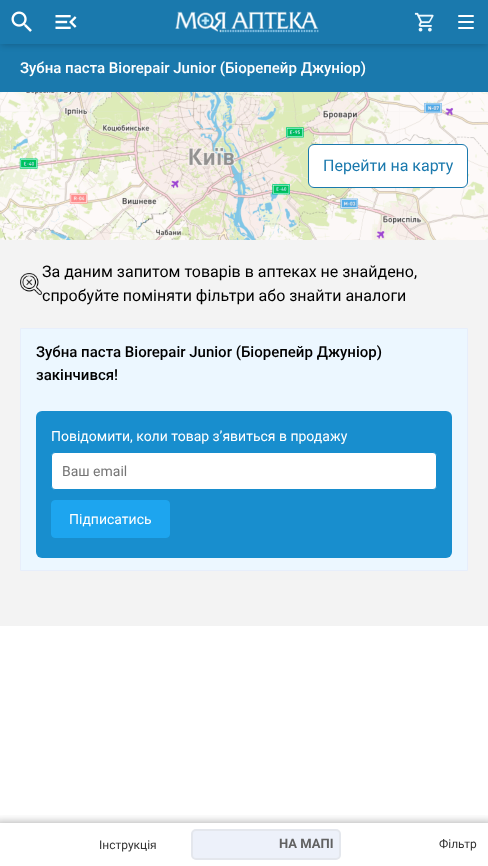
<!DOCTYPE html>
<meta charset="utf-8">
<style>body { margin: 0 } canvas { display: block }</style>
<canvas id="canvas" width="488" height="866"></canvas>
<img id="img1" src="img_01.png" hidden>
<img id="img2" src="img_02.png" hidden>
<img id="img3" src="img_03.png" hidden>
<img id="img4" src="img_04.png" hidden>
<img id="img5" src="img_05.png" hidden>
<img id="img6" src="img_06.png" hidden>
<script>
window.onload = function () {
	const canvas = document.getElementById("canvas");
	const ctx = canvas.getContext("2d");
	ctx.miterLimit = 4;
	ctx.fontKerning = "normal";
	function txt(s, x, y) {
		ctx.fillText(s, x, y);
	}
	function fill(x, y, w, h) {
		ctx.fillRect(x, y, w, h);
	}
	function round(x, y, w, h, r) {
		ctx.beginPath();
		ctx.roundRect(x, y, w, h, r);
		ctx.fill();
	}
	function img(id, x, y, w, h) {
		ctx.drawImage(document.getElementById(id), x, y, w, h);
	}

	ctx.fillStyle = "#FFFFFF";
	fill(0, 0, 488, 866);
	ctx.fillStyle = "#1A79AD";
	fill(0, 44, 488, 48);
	ctx.fillStyle = "rgba(0, 0, 0, 0.2)";
	ctx.filter = "blur(3px)";
	ctx.beginPath();
	ctx.rect(1, 3, 486, 42);
	ctx.fill();
	ctx.filter = "none";
	ctx.fillStyle = "#1A79AD";
	fill(0, 0, 488, 44);
	img("img1", 11, 11, 21, 21);
	img("img2", 55, 15, 22, 14);
	img("img3", 175, 11, 144, 22);
	img("img4", 414, 12, 20, 20);
	ctx.fillStyle = "#FFFFFF";
	round(458, 15, 16, 2, 1);
	round(458, 21, 16, 2, 1);
	round(458, 27, 16, 2, 1);
	ctx.fillStyle = "#F3F3F3";
	fill(0, 92, 488, 534);
	img("img5", 0, 92, 488, 148);
	ctx.fillStyle = "#FFFFFF";
	ctx.beginPath();
	ctx.roundRect(308.5, 144.5, 159, 43, 5.5);
	ctx.fill();
	ctx.strokeStyle = "#1A79AD";
	ctx.stroke();
	img("img6", 20, 273, 22, 22);
	ctx.fillStyle = "#ECF7FF";
	ctx.beginPath();
	ctx.rect(20.5, 328.5, 447, 242);
	ctx.fill();
	ctx.strokeStyle = "#E7EEFB";
	ctx.stroke();
	ctx.fillStyle = "#188ECE";
	round(36, 411, 416, 147, 6);
	ctx.fillStyle = "#FFFFFF";
	ctx.beginPath();
	ctx.roundRect(51.5, 452.5, 385, 37, 3.5);
	ctx.fill();
	ctx.strokeStyle = "#188ECE";
	ctx.stroke();
	ctx.fillStyle = "#1DA5EF";
	ctx.beginPath();
	ctx.roundRect(51.5, 500.5, 118, 37, 3.5);
	ctx.fill();
	ctx.strokeStyle = "#1DA5EF";
	ctx.stroke();
	ctx.save();
	ctx.beginPath();
	ctx.rect(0, 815, 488, 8);
	ctx.clip();
	ctx.fillStyle = "rgba(0, 0, 0, 0.3)";
	ctx.filter = "blur(4.5px)";
	ctx.beginPath();
	ctx.rect(-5, 822, 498, 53);
	ctx.fill();
	ctx.filter = "none";
	ctx.restore();
	ctx.fillStyle = "#EDF1FA";
	ctx.beginPath();
	ctx.roundRect(192, 830, 148, 29, 4);
	ctx.fill();
	ctx.strokeStyle = "#E4E7ED";
	ctx.lineWidth = 2;
	ctx.stroke();
	ctx.font = "500 15px Roboto";
	ctx.fillStyle = "#FFFFFF";
	txt("Зубна паста Biorepair Junior (Біорепейр Джуніор)", 20, 73);
	ctx.font = "16px Roboto";
	ctx.fillStyle = "#1A79AD";
	txt("Перейти на карту", 323, 171);
	ctx.fillStyle = "#000000";
	txt("За даним запитом товарів в аптеках не знайдено,", 42, 277);
	txt("спробуйте поміняти фільтри або знайти аналоги", 42, 301);
	ctx.font = "500 15px Roboto";
	txt("Зубна паста Biorepair Junior (Біорепейр Джуніор)", 36, 357);
	txt("закінчився!", 36, 380);
	ctx.font = "14px Roboto";
	ctx.fillStyle = "#FFFFFF";
	txt("Повідомити, коли товар з’явиться в продажу", 51, 441);
	ctx.fillStyle = "#757575";
	txt("Ваш email", 62, 476);
	ctx.fillStyle = "#FFFFFF";
	txt("Підписатись", 69, 524);
	ctx.font = "12px Roboto";
	ctx.fillStyle = "#333333";
	txt("Інструкція", 99, 849);
	ctx.font = "bold 13px Roboto";
	ctx.fillStyle = "#626262";
	txt("НА МАПІ", 279, 848);
	ctx.font = "12px Roboto";
	ctx.fillStyle = "#333333";
	txt("Фільтр", 439, 848);
};
</script>
